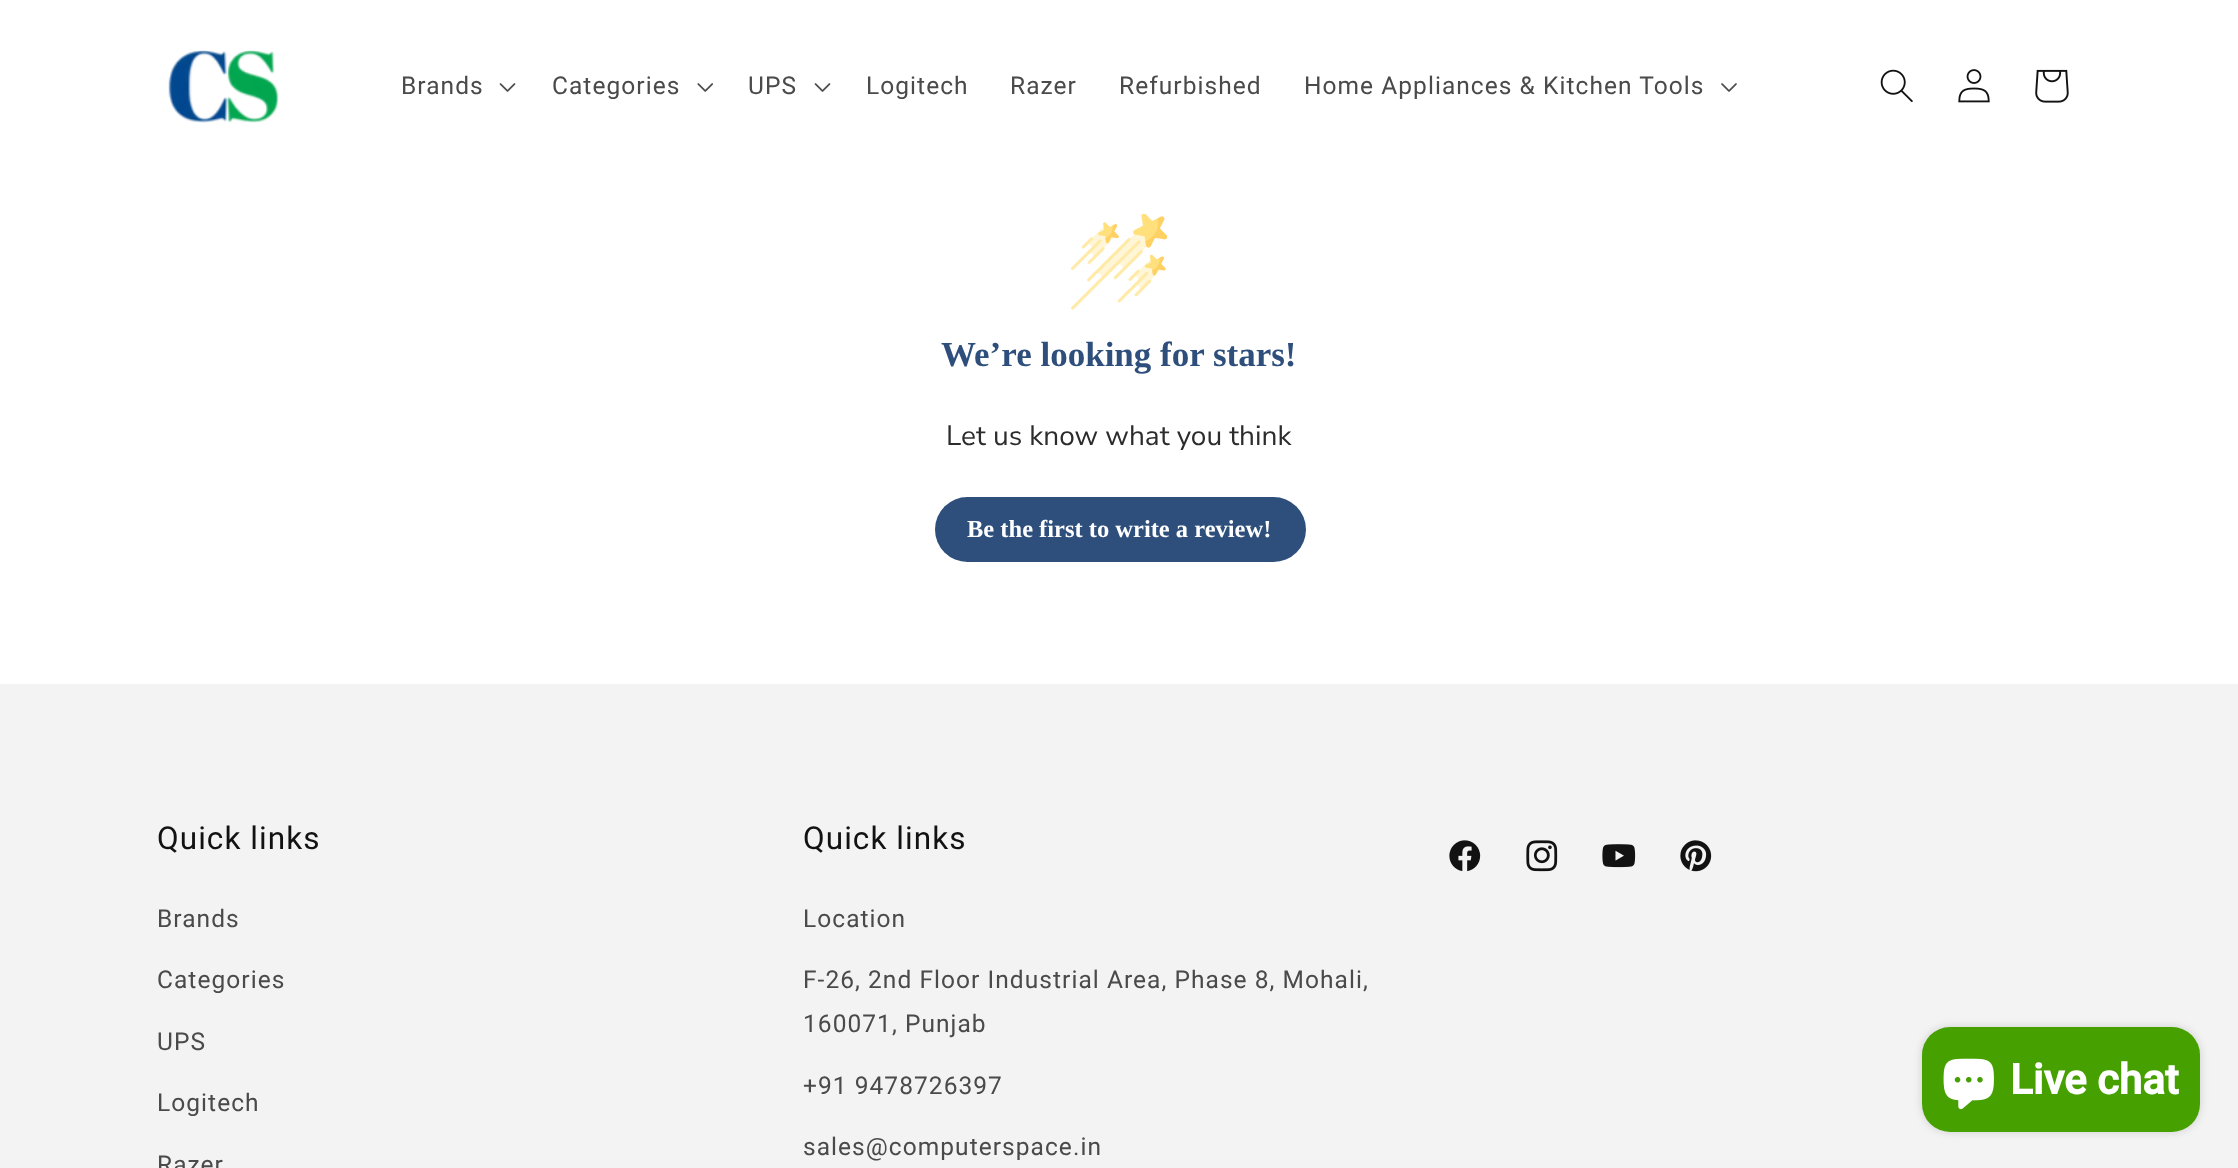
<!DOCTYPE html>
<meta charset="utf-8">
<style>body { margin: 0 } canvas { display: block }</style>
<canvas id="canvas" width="2238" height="1168"></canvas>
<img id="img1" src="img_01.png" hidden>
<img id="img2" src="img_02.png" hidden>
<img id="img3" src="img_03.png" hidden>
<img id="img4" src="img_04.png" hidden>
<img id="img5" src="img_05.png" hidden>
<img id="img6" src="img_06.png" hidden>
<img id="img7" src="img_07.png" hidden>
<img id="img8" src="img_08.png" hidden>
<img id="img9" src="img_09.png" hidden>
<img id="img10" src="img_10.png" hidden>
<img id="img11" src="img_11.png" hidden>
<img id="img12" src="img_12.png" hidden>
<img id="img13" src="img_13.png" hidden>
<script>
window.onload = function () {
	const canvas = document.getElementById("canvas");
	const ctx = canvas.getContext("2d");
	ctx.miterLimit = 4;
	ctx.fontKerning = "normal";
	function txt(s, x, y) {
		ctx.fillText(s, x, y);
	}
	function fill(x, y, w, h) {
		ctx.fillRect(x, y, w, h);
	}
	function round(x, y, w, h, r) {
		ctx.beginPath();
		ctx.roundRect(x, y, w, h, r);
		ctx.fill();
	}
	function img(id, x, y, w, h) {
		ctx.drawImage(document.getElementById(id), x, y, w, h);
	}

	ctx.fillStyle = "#FFFFFF";
	fill(0, 0, 2238, 1168);
	img("img1", 168, 50, 111, 73);
	img("img2", 499, 83, 17, 9);
	img("img3", 697, 83, 16, 9);
	img("img2", 814, 83, 17, 9);
	img("img4", 1721, 83, 16, 9);
	img("img5", 1880, 69, 33, 34);
	img("img6", 1958, 69, 32, 34);
	img("img7", 2035, 69, 34, 34);
	img("img8", 1071, 214, 96, 96);
	ctx.fillStyle = "#2E4F7C";
	round(935, 497, 371, 65, 32.5);
	ctx.fillStyle = "#F3F3F3";
	fill(0, 684, 2238, 484);
	img("img9", 1449, 840, 32, 32);
	img("img10", 1526, 840, 32, 32);
	img("img11", 1602, 844, 34, 24);
	img("img12", 1680, 840, 32, 32);
	ctx.fillStyle = "rgba(0, 0, 0, 0.15)";
	ctx.filter = "blur(4.5px)";
	ctx.beginPath();
	ctx.roundRect(1922, 1027, 278, 105, 28);
	ctx.fill();
	ctx.filter = "none";
	ctx.fillStyle = "#45A000";
	round(1922, 1027, 278, 105, 28);
	img("img13", 1943, 1058, 51, 52);
	ctx.letterSpacing = "1.05px";
	ctx.font = "24.5px Roboto";
	ctx.fillStyle = "#4A4A4A";
	txt("Brands", 401, 94);
	txt("Categories", 552, 94);
	txt("UPS", 748, 94);
	txt("Logitech", 866, 94);
	txt("Razer", 1010, 94);
	txt("Refurbished", 1119, 94);
	txt("Home Appliances & Kitchen Tools", 1304, 94);
	ctx.letterSpacing = "0px";
	ctx.font = "bold 35px Liberation Serif";
	ctx.fillStyle = "#2E4F7C";
	txt("We’re looking for stars!", 941, 366);
	ctx.font = "200 28px Nunito Sans";
	ctx.fillStyle = "#2C2C2C";
	txt("Let us know what you think", 946, 445);
	ctx.font = "bold 24.5px Liberation Serif";
	ctx.fillStyle = "#FFFFFF";
	txt("Be the first to write a review!", 967, 537);
	ctx.letterSpacing = "1.05px";
	ctx.font = "31.5px Roboto";
	ctx.fillStyle = "#121212";
	txt("Quick links", 157, 849);
	ctx.font = "24.5px Roboto";
	ctx.fillStyle = "#4A4A4A";
	txt("Brands", 157, 927);
	txt("Categories", 157, 988);
	txt("UPS", 157, 1050);
	txt("Logitech", 157, 1111);
	txt("Razer", 157, 1173);
	ctx.font = "31.5px Roboto";
	ctx.fillStyle = "#121212";
	txt("Quick links", 803, 849);
	ctx.font = "24.5px Roboto";
	ctx.fillStyle = "#4A4A4A";
	txt("Location", 803, 927);
	txt("F-26, 2nd Floor Industrial Area, Phase 8, Mohali,", 803, 988);
	txt("160071, Punjab", 803, 1032);
	txt("+91 9478726397", 803, 1094);
	txt("sales@computerspace.in", 803, 1155);
	ctx.letterSpacing = "0px";
	ctx.font = "bold 42px Roboto";
	ctx.fillStyle = "#FFFFFF";
	txt("Live chat", 2010, 1094);
};
</script>
